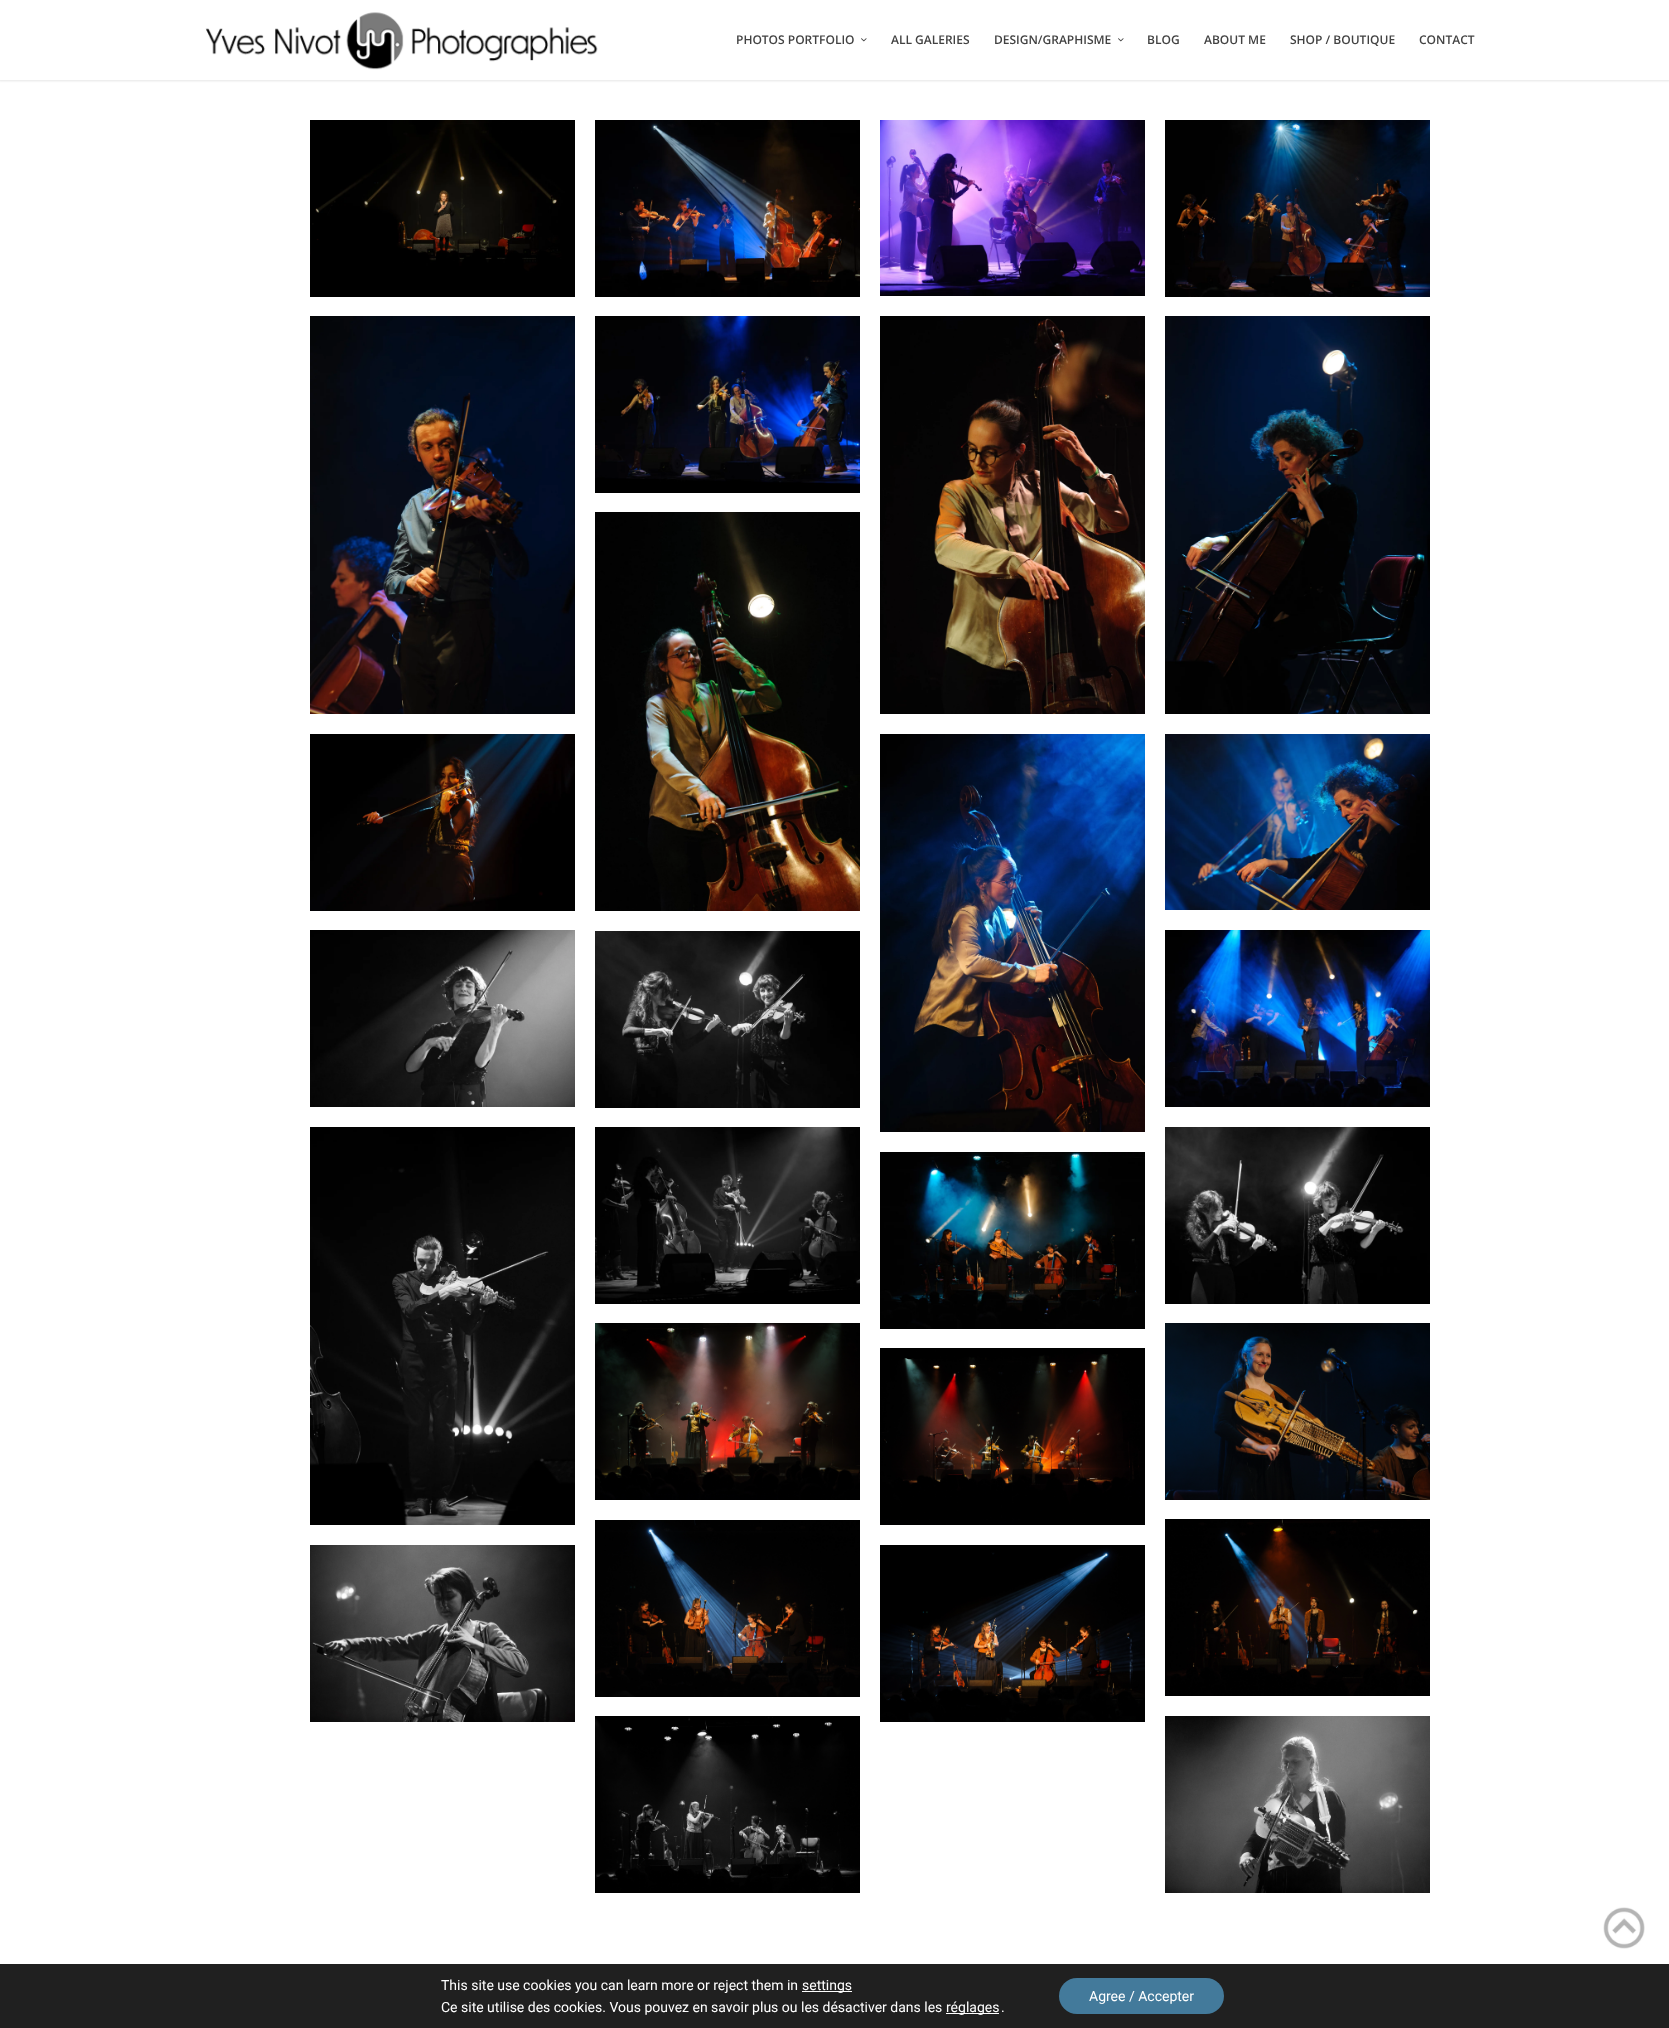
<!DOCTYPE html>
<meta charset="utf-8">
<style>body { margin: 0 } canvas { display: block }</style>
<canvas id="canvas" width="1669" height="2028"></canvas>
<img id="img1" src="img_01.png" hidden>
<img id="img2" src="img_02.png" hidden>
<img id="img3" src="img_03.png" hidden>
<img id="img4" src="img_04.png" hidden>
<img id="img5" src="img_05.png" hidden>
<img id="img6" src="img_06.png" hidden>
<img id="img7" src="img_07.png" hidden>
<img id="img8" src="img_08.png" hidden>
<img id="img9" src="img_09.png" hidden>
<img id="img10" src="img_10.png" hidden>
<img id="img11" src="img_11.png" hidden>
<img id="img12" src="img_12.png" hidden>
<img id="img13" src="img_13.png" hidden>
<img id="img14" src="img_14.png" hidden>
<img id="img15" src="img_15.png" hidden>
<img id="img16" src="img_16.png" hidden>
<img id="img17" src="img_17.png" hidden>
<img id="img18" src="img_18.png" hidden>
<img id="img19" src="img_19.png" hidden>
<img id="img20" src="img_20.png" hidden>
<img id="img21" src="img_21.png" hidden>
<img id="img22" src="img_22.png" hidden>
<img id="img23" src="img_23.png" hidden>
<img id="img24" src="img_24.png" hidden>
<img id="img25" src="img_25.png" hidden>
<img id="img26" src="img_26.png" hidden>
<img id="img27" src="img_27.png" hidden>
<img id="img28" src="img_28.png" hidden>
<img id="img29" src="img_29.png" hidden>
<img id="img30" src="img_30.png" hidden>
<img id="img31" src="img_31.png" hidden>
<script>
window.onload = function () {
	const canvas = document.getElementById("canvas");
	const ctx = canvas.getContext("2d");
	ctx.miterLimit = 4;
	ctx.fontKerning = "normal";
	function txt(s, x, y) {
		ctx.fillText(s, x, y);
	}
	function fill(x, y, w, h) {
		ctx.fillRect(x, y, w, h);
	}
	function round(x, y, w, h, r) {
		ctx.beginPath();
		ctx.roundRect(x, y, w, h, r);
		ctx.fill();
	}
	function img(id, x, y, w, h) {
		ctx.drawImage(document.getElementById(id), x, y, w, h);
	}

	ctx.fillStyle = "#FFFFFF";
	fill(0, 0, 1669, 2028);
	ctx.fillStyle = "rgba(0, 0, 0, 0.1)";
	ctx.filter = "blur(1px)";
	ctx.beginPath();
	ctx.rect(-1, -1, 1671, 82);
	ctx.fill();
	ctx.filter = "none";
	ctx.fillStyle = "#FFFFFF";
	fill(0, 0, 1669, 80);
	img("img1", 205, 12, 393, 58);
	img("img2", 861, 38, 6, 4);
	img("img2", 1118, 38, 6, 4);
	img("img3", 310, 120, 265, 177);
	img("img4", 595, 120, 265, 177);
	img("img5", 880, 120, 265, 176);
	img("img6", 1165, 120, 265, 177);
	img("img7", 310, 316, 265, 398);
	img("img8", 595, 316, 265, 177);
	img("img9", 880, 316, 265, 398);
	img("img10", 1165, 316, 265, 398);
	img("img11", 310, 734, 265, 177);
	img("img12", 595, 512, 265, 399);
	img("img13", 880, 734, 265, 398);
	img("img14", 1165, 734, 265, 176);
	img("img15", 310, 930, 265, 177);
	img("img16", 595, 931, 265, 177);
	img("img17", 1165, 930, 265, 177);
	img("img18", 310, 1127, 265, 398);
	img("img19", 595, 1127, 265, 177);
	img("img20", 880, 1152, 265, 177);
	img("img21", 1165, 1127, 265, 177);
	img("img22", 595, 1323, 265, 177);
	img("img23", 880, 1348, 265, 177);
	img("img24", 1165, 1323, 265, 177);
	img("img25", 310, 1545, 265, 177);
	img("img26", 595, 1520, 265, 177);
	img("img27", 880, 1545, 265, 177);
	img("img28", 1165, 1519, 265, 177);
	img("img29", 595, 1716, 265, 177);
	img("img30", 1165, 1716, 265, 177);
	img("img31", 1603, 1907, 42, 42);
	ctx.fillStyle = "#202020";
	fill(0, 1964, 1669, 64);
	ctx.fillStyle = "#FFFFFF";
	fill(802, 1991, 50, 1);
	fill(946, 2013, 53, 1);
	ctx.fillStyle = "#437A9B";
	round(1059, 1978, 165, 36, 18);
	ctx.font = "600 12px Open Sans";
	ctx.fillStyle = "#424242";
	txt("PHOTOS PORTFOLIO", 736, 44);
	txt("ALL GALERIES", 891, 44);
	txt("DESIGN/GRAPHISME", 994, 44);
	txt("BLOG", 1147, 44);
	txt("ABOUT ME", 1204, 44);
	txt("SHOP / BOUTIQUE", 1290, 44);
	txt("CONTACT", 1419, 44);
	ctx.font = "14px Roboto";
	ctx.fillStyle = "#FFFFFF";
	txt("This site use cookies you can learn more or reject them in", 441, 1990);
	txt("settings", 802, 1990);
	txt("Ce site utilise des cookies. Vous pouvez en savoir plus ou les désactiver dans les", 441, 2012);
	txt("réglages", 946, 2012);
	txt(".", 1001, 2012);
	txt("Agree / Accepter", 1089, 2001);
};
</script>
